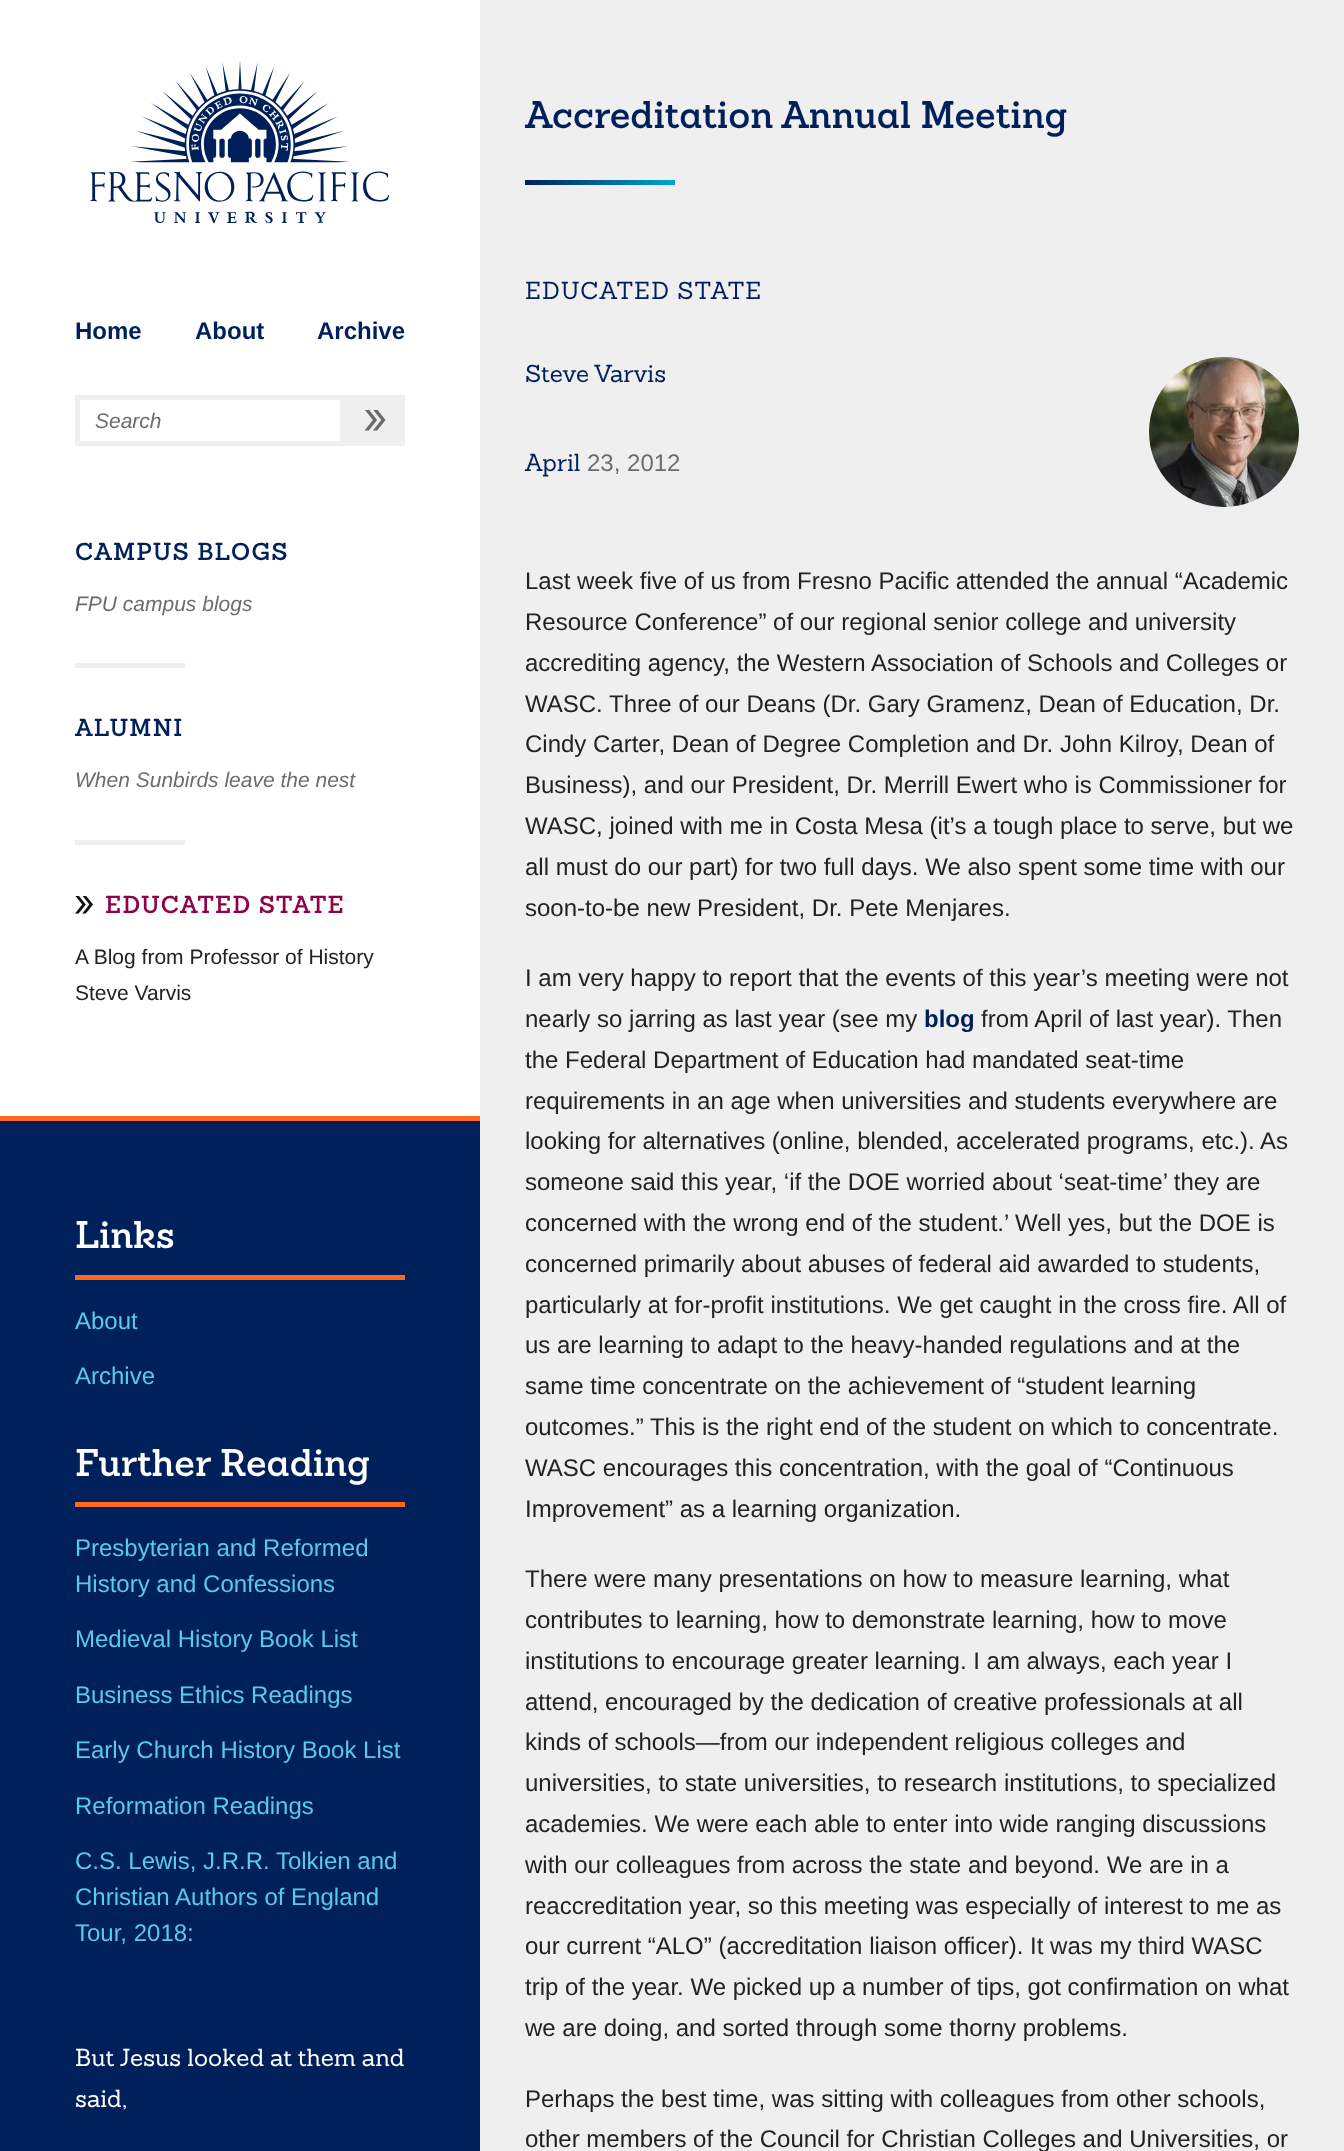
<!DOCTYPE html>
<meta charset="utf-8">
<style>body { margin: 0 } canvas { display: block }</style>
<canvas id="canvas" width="1344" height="2151"></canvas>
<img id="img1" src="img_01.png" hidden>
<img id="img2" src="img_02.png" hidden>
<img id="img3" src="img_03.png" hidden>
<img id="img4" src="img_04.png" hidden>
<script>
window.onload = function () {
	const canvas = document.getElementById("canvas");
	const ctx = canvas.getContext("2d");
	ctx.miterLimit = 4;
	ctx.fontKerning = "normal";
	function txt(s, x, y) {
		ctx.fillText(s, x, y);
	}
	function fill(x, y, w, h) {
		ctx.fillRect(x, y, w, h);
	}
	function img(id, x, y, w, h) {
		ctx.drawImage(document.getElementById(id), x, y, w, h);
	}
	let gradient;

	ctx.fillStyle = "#FFFFFF";
	fill(0, 0, 1344, 2151);
	img("img1", 90, 61, 299, 163);
	ctx.fillStyle = "#EFEFEF";
	fill(345, 395, 60, 51);
	ctx.strokeStyle = "#EFEFEF";
	ctx.lineWidth = 5;
	ctx.strokeRect(77.5, 397.5, 265, 46);
	img("img2", 365, 410, 21, 21);
	fill(75, 663, 110, 5);
	fill(75, 840, 110, 5);
	img("img3", 75, 896, 18, 18);
	ctx.fillStyle = "#00205B";
	fill(0, 1121, 480, 1030);
	ctx.fillStyle = "#FF671F";
	fill(0, 1116, 480, 5);
	fill(75, 1275, 330, 5);
	fill(75, 1502, 330, 5);
	ctx.fillStyle = "#EFEFEF";
	fill(480, 0, 864, 2151);
	gradient = ctx.createLinearGradient(525, 182, 675, 182);
	gradient.addColorStop(0, "#00205B");
	gradient.addColorStop(1, "#00A9CE");
	ctx.fillStyle = gradient;
	fill(525, 180, 150, 5);
	img("img4", 1149, 357, 150, 150);
	ctx.font = "bold 24px Liberation Sans";
	ctx.fillStyle = "#00205B";
	txt("Home", 75, 339);
	txt("About", 195, 339);
	txt("Archive", 317, 339);
	ctx.font = "italic 21px Liberation Sans";
	ctx.fillStyle = "#6C6C6C";
	txt("Search", 95, 428);
	ctx.letterSpacing = "1.25px";
	ctx.font = "600 24px Sanchez";
	ctx.fillStyle = "#00205B";
	txt("CAMPUS BLOGS", 75, 560);
	ctx.letterSpacing = "0px";
	ctx.font = "italic 21px Liberation Sans";
	ctx.fillStyle = "#6C6C6C";
	txt("FPU campus blogs", 75, 611);
	ctx.letterSpacing = "1.25px";
	ctx.font = "600 24px Sanchez";
	ctx.fillStyle = "#00205B";
	txt("ALUMNI", 75, 736);
	ctx.letterSpacing = "0px";
	ctx.font = "italic 21px Liberation Sans";
	ctx.fillStyle = "#6C6C6C";
	txt("When Sunbirds leave the nest", 75, 787);
	ctx.letterSpacing = "1.25px";
	ctx.font = "600 24px Sanchez";
	ctx.fillStyle = "#910048";
	txt("EDUCATED STATE", 105, 913);
	ctx.letterSpacing = "0px";
	ctx.font = "21px Liberation Sans";
	ctx.fillStyle = "#222222";
	txt("A Blog from Professor of History", 75, 964);
	txt("Steve Varvis", 75, 1000);
	ctx.font = "600 37.5px Sanchez";
	ctx.fillStyle = "#FFFFFF";
	txt("Links", 75, 1248);
	ctx.font = "24px Liberation Sans";
	ctx.fillStyle = "#59CBE8";
	txt("About", 75, 1329);
	txt("Archive", 75, 1384);
	ctx.font = "600 37.5px Sanchez";
	ctx.fillStyle = "#FFFFFF";
	txt("Further Reading", 75, 1476);
	ctx.font = "24px Liberation Sans";
	ctx.fillStyle = "#59CBE8";
	txt("Presbyterian and Reformed", 75, 1556);
	txt("History and Confessions", 75, 1592);
	txt("Medieval History Book List", 75, 1647);
	txt("Business Ethics Readings", 75, 1703);
	txt("Early Church History Book List", 75, 1758);
	txt("Reformation Readings", 75, 1814);
	txt("C.S. Lewis, J.R.R. Tolkien and", 75, 1869);
	txt("Christian Authors of England", 75, 1905);
	txt("Tour, 2018:", 75, 1941);
	ctx.font = "24px Sanchez";
	ctx.fillStyle = "#FFFFFF";
	txt("But Jesus looked at them and", 75, 2066);
	txt("said,", 75, 2107);
	ctx.font = "600 37.5px Sanchez";
	ctx.fillStyle = "#00205B";
	txt("Accreditation Annual Meeting", 525, 128);
	ctx.letterSpacing = "1.25px";
	ctx.font = "24px Sanchez";
	txt("EDUCATED STATE", 525, 299);
	ctx.letterSpacing = "0px";
	txt("Steve Varvis", 525, 382);
	txt("April", 525, 471);
	ctx.font = "24px Liberation Sans";
	ctx.fillStyle = "#6C6C6C";
	txt("23, 2012", 587, 471);
	ctx.fillStyle = "#222222";
	txt("Last week five of us from Fresno Pacific attended the annual “Academic", 525, 589);
	txt("Resource Conference” of our regional senior college and university", 525, 630);
	txt("accrediting agency, the Western Association of Schools and Colleges or", 525, 671);
	txt("WASC. Three of our Deans (Dr. Gary Gramenz, Dean of Education, Dr.", 525, 712);
	txt("Cindy Carter, Dean of Degree Completion and Dr. John Kilroy, Dean of", 525, 752);
	txt("Business), and our President, Dr. Merrill Ewert who is Commissioner for", 525, 793);
	txt("WASC, joined with me in Costa Mesa (it’s a tough place to serve, but we", 525, 834);
	txt("all must do our part) for two full days. We also spent some time with our", 525, 875);
	txt("soon-to-be new President, Dr. Pete Menjares.", 525, 916);
	txt("I am very happy to report that the events of this year’s meeting were not", 525, 986);
	txt("nearly so jarring as last year (see my", 525, 1027);
	ctx.font = "bold 24px Liberation Sans";
	ctx.fillStyle = "#00205B";
	txt("blog", 924, 1027);
	ctx.font = "24px Liberation Sans";
	ctx.fillStyle = "#222222";
	txt("from April of last year). Then", 981, 1027);
	txt("the Federal Department of Education had mandated seat-time", 525, 1068);
	txt("requirements in an age when universities and students everywhere are", 525, 1109);
	txt("looking for alternatives (online, blended, accelerated programs, etc.). As", 525, 1149);
	txt("someone said this year, ‘if the DOE worried about ‘seat-time’ they are", 525, 1190);
	txt("concerned with the wrong end of the student.’ Well yes, but the DOE is", 525, 1231);
	txt("concerned primarily about abuses of federal aid awarded to students,", 525, 1272);
	txt("particularly at for-profit institutions. We get caught in the cross fire. All of", 525, 1313);
	txt("us are learning to adapt to the heavy-handed regulations and at the", 525, 1353);
	txt("same time concentrate on the achievement of “student learning", 525, 1394);
	txt("outcomes.” This is the right end of the student on which to concentrate.", 525, 1435);
	txt("WASC encourages this concentration, with the goal of “Continuous", 525, 1476);
	txt("Improvement” as a learning organization.", 525, 1517);
	txt("There were many presentations on how to measure learning, what", 525, 1587);
	txt("contributes to learning, how to demonstrate learning, how to move", 525, 1628);
	txt("institutions to encourage greater learning. I am always, each year I", 525, 1669);
	txt("attend, encouraged by the dedication of creative professionals at all", 525, 1710);
	txt("kinds of schools—from our independent religious colleges and", 525, 1750);
	txt("universities, to state universities, to research institutions, to specialized", 525, 1791);
	txt("academies. We were each able to enter into wide ranging discussions", 525, 1832);
	txt("with our colleagues from across the state and beyond. We are in a", 525, 1873);
	txt("reaccreditation year, so this meeting was especially of interest to me as", 525, 1914);
	txt("our current “ALO” (accreditation liaison officer). It was my third WASC", 525, 1954);
	txt("trip of the year. We picked up a number of tips, got confirmation on what", 525, 1995);
	txt("we are doing, and sorted through some thorny problems.", 525, 2036);
	txt("Perhaps the best time, was sitting with colleagues from other schools,", 525, 2107);
	txt("other members of the Council for Christian Colleges and Universities, or", 525, 2147);
};
</script>
